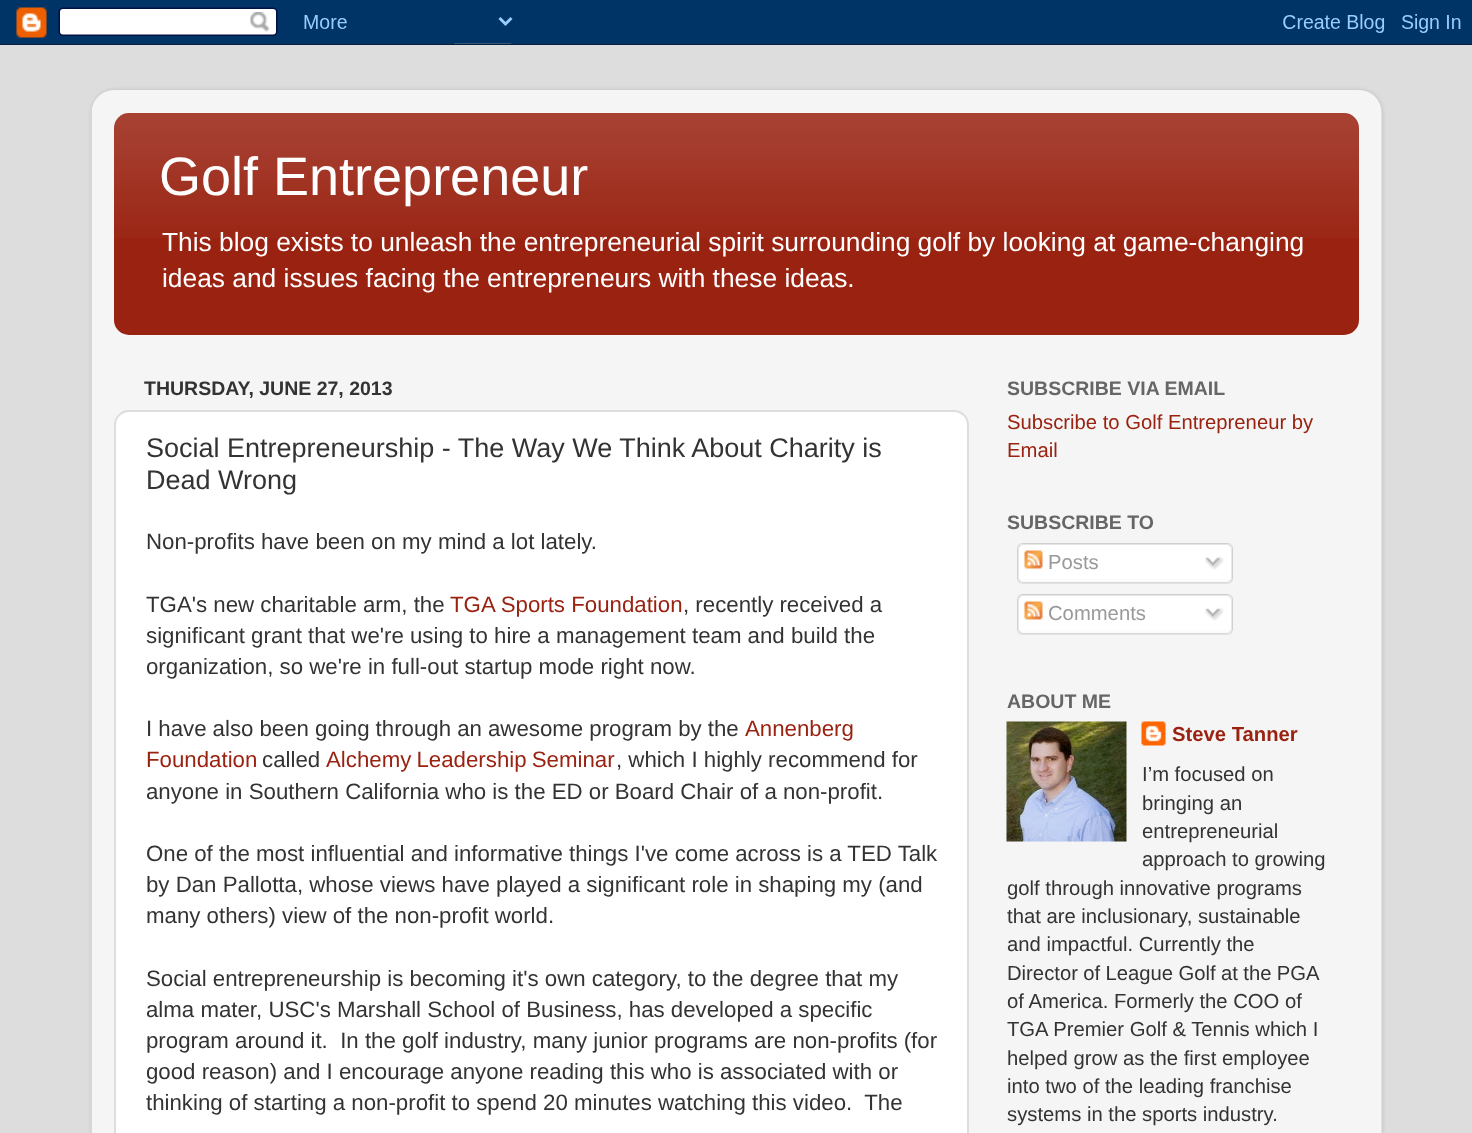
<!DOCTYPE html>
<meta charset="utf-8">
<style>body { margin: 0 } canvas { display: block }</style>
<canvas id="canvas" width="1472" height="1133"></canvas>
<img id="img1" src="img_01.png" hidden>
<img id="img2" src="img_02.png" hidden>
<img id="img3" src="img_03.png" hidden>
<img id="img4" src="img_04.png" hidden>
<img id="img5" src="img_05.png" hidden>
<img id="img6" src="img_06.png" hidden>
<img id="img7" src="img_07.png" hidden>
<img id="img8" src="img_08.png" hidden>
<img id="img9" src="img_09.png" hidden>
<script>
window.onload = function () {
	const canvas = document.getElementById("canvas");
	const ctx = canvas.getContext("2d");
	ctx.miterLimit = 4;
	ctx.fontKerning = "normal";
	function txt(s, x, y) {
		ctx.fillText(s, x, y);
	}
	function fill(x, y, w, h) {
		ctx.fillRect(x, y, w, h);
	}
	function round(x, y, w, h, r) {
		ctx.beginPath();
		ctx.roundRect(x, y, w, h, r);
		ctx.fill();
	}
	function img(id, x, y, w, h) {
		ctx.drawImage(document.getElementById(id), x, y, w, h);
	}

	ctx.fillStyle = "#DDDDDD";
	fill(0, 0, 1472, 1133);
	img("img1", 0, 0, 1472, 45);
	ctx.save();
	ctx.beginPath();
	ctx.moveTo(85, 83);
	ctx.lineTo(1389, 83);
	ctx.lineTo(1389, 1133);
	ctx.lineTo(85, 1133);
	ctx.closePath();
	ctx.moveTo(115, 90);
	ctx.lineTo(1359, 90);
	ctx.bezierCurveTo(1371.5, 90, 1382, 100.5, 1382, 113);
	ctx.lineTo(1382, 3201);
	ctx.bezierCurveTo(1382, 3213.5, 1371.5, 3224, 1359, 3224);
	ctx.lineTo(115, 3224);
	ctx.bezierCurveTo(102.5, 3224, 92, 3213.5, 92, 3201);
	ctx.lineTo(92, 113);
	ctx.bezierCurveTo(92, 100.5, 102.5, 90, 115, 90);
	ctx.closePath();
	ctx.clip("evenodd");
	ctx.fillStyle = "rgba(0, 0, 0, 0.15)";
	ctx.filter = "blur(2px)";
	ctx.beginPath();
	ctx.roundRect(92, 90, 1290, 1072, 23);
	ctx.fill();
	ctx.filter = "none";
	ctx.restore();
	img("img2", 91, 90, 1291, 1043);
	ctx.fillStyle = "#992211";
	round(114, 113, 1245, 222, 15);
	img("img3", 114, 113, 1245, 125);
	ctx.fillStyle = "#FFFFFF";
	ctx.beginPath();
	ctx.roundRect(115, 411, 853, 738, 14);
	ctx.fill();
	ctx.strokeStyle = "#DDDDDD";
	ctx.lineWidth = 2;
	ctx.stroke();
	img("img4", 1017, 543, 216, 36);
	img("img5", 1024, 550, 19, 19);
	img("img6", 1204, 556, 20, 14);
	img("img7", 1017, 579, 216, 5);
	img("img4", 1017, 594, 216, 36);
	img("img5", 1024, 601, 19, 19);
	img("img6", 1204, 607, 20, 14);
	img("img7", 1017, 630, 216, 5);
	img("img8", 1006, 721, 121, 121);
	img("img9", 1141, 721, 25, 25);
	ctx.font = "54px Liberation Sans";
	txt("Golf Entrepreneur", 159, 195);
	ctx.font = "26.35px Liberation Sans";
	txt("This blog exists to unleash the entrepreneurial spirit surrounding golf by looking at game-changing", 162, 251);
	txt("ideas and issues facing the entrepreneurs with these ideas.", 162, 287);
	ctx.font = "bold 19.5px Liberation Sans";
	ctx.fillStyle = "#333333";
	txt("THURSDAY, JUNE 27, 2013", 144, 395);
	ctx.font = "27px Liberation Sans";
	txt("Social Entrepreneurship - The Way We Think About Charity is", 146, 457);
	txt("Dead Wrong", 146, 489);
	ctx.font = "22.25px Liberation Sans";
	txt("Non-profits have been on my mind a lot lately.", 146, 549);
	txt("TGA's new charitable arm, the", 146, 612);
	ctx.fillStyle = "#992211";
	txt("TGA Sports Foundation", 450, 612);
	ctx.fillStyle = "#333333";
	txt(", recently received a", 683, 612);
	txt("significant grant that we're using to hire a management team and build the", 146, 643);
	txt("organization, so we're in full-out startup mode right now.", 146, 674);
	ctx.wordSpacing = "-0.1px";
	txt("I have also been going through an awesome program by the", 146, 736);
	ctx.wordSpacing = "0px";
	ctx.fillStyle = "#992211";
	txt("Annenberg", 745, 736);
	txt("Foundation", 146, 767);
	ctx.fillStyle = "#333333";
	txt("called", 262, 767);
	ctx.wordSpacing = "-1px";
	ctx.fillStyle = "#992211";
	txt("Alchemy Leadership Seminar", 326, 767);
	ctx.wordSpacing = "0px";
	ctx.fillStyle = "#333333";
	txt(", which I highly recommend for", 616, 767);
	txt("anyone in Southern California who is the ED or Board Chair of a non-profit.", 146, 799);
	txt("One of the most influential and informative things I've come across is a TED Talk", 146, 861);
	txt("by Dan Pallotta, whose views have played a significant role in shaping my (and", 146, 892);
	txt("many others) view of the non-profit world.", 146, 923);
	txt("Social entrepreneurship is becoming it's own category, to the degree that my", 146, 986);
	txt("alma mater, USC's Marshall School of Business, has developed a specific", 146, 1017);
	txt("program around it.  In the golf industry, many junior programs are non-profits (for", 146, 1048);
	txt("good reason) and I encourage anyone reading this who is associated with or", 146, 1079);
	txt("thinking of starting a non-profit to spend 20 minutes watching this video.  The", 146, 1110);
	ctx.font = "bold 19.5px Liberation Sans";
	ctx.fillStyle = "#666666";
	txt("SUBSCRIBE VIA EMAIL", 1007, 395);
	ctx.font = "20.25px Liberation Sans";
	ctx.fillStyle = "#992211";
	txt("Subscribe to Golf Entrepreneur by", 1007, 429);
	txt("Email", 1007, 457);
	ctx.font = "bold 19.5px Liberation Sans";
	ctx.fillStyle = "#666666";
	txt("SUBSCRIBE TO", 1007, 529);
	ctx.font = "20.25px Liberation Sans";
	ctx.fillStyle = "#999999";
	txt("Posts", 1048, 569);
	txt("Comments", 1048, 620);
	ctx.font = "bold 19.5px Liberation Sans";
	ctx.fillStyle = "#666666";
	txt("ABOUT ME", 1007, 708);
	ctx.font = "bold 20.25px Liberation Sans";
	ctx.fillStyle = "#992211";
	txt("Steve Tanner", 1172, 741);
	ctx.font = "20.25px Liberation Sans";
	ctx.fillStyle = "#333333";
	txt("I’m focused on", 1142, 781);
	txt("bringing an", 1142, 810);
	txt("entrepreneurial", 1142, 838);
	txt("approach to growing", 1142, 866);
	txt("golf through innovative programs", 1007, 895);
	txt("that are inclusionary, sustainable", 1007, 923);
	txt("and impactful. Currently the", 1007, 951);
	ctx.wordSpacing = "-0.25px";
	txt("Director of League Golf at the PGA", 1007, 980);
	ctx.wordSpacing = "0px";
	txt("of America. Formerly the COO of", 1007, 1008);
	txt("TGA Premier Golf & Tennis which I", 1007, 1036);
	txt("helped grow as the first employee", 1007, 1065);
	txt("into two of the leading franchise", 1007, 1093);
	txt("systems in the sports industry.", 1007, 1121);
};
</script>
